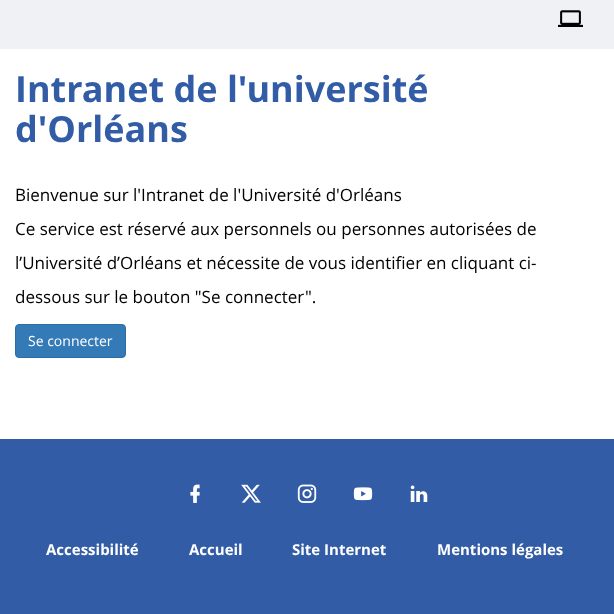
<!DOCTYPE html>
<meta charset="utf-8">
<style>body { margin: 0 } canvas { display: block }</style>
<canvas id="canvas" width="614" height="614"></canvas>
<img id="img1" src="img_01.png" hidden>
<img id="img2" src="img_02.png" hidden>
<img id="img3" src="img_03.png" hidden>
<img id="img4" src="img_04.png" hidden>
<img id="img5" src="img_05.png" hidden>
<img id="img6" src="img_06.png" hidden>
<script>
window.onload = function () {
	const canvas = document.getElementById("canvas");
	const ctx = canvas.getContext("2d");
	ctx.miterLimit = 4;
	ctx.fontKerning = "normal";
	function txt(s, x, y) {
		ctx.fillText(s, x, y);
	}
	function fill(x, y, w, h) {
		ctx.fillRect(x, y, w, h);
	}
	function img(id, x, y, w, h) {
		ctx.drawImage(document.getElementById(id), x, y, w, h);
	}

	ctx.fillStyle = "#FFFFFF";
	fill(0, 0, 614, 614);
	ctx.fillStyle = "#EFF1F5";
	fill(0, 0, 614, 49);
	img("img1", 558, 10, 25, 17);
	ctx.fillStyle = "#337AB7";
	ctx.beginPath();
	ctx.roundRect(15.5, 324.5, 110, 33, 3.5);
	ctx.fill();
	ctx.strokeStyle = "#2E6DA4";
	ctx.stroke();
	ctx.fillStyle = "#325CA6";
	fill(0, 439, 614, 175);
	img("img2", 190, 484, 10, 19);
	img("img3", 241, 484, 20, 19);
	img("img4", 297, 484, 20, 19);
	img("img5", 353, 487, 20, 14);
	img("img6", 410, 485, 18, 17);
	ctx.font = "bold 36px Open Sans";
	txt("Intranet de l'université", 15, 102);
	txt("d'Orléans", 15, 142);
	ctx.font = "17px Open Sans";
	ctx.fillStyle = "#000000";
	txt("Bienvenue sur l'Intranet de l'Université d'Orléans", 15, 201);
	txt("Ce service est réservé aux personnels ou personnes autorisées de", 15, 235);
	txt("l’Université d’Orléans et nécessite de vous identifier en cliquant ci-", 15, 269);
	txt("dessous sur le bouton \"Se connecter\".", 15, 303);
	ctx.font = "14px Open Sans";
	ctx.fillStyle = "#FFFFFF";
	txt("Se connecter", 28, 346);
	ctx.font = "bold 15px Open Sans";
	txt("Accessibilité", 46, 555);
	txt("Accueil", 189, 555);
	txt("Site Internet", 292, 555);
	txt("Mentions légales", 437, 555);
};
</script>
